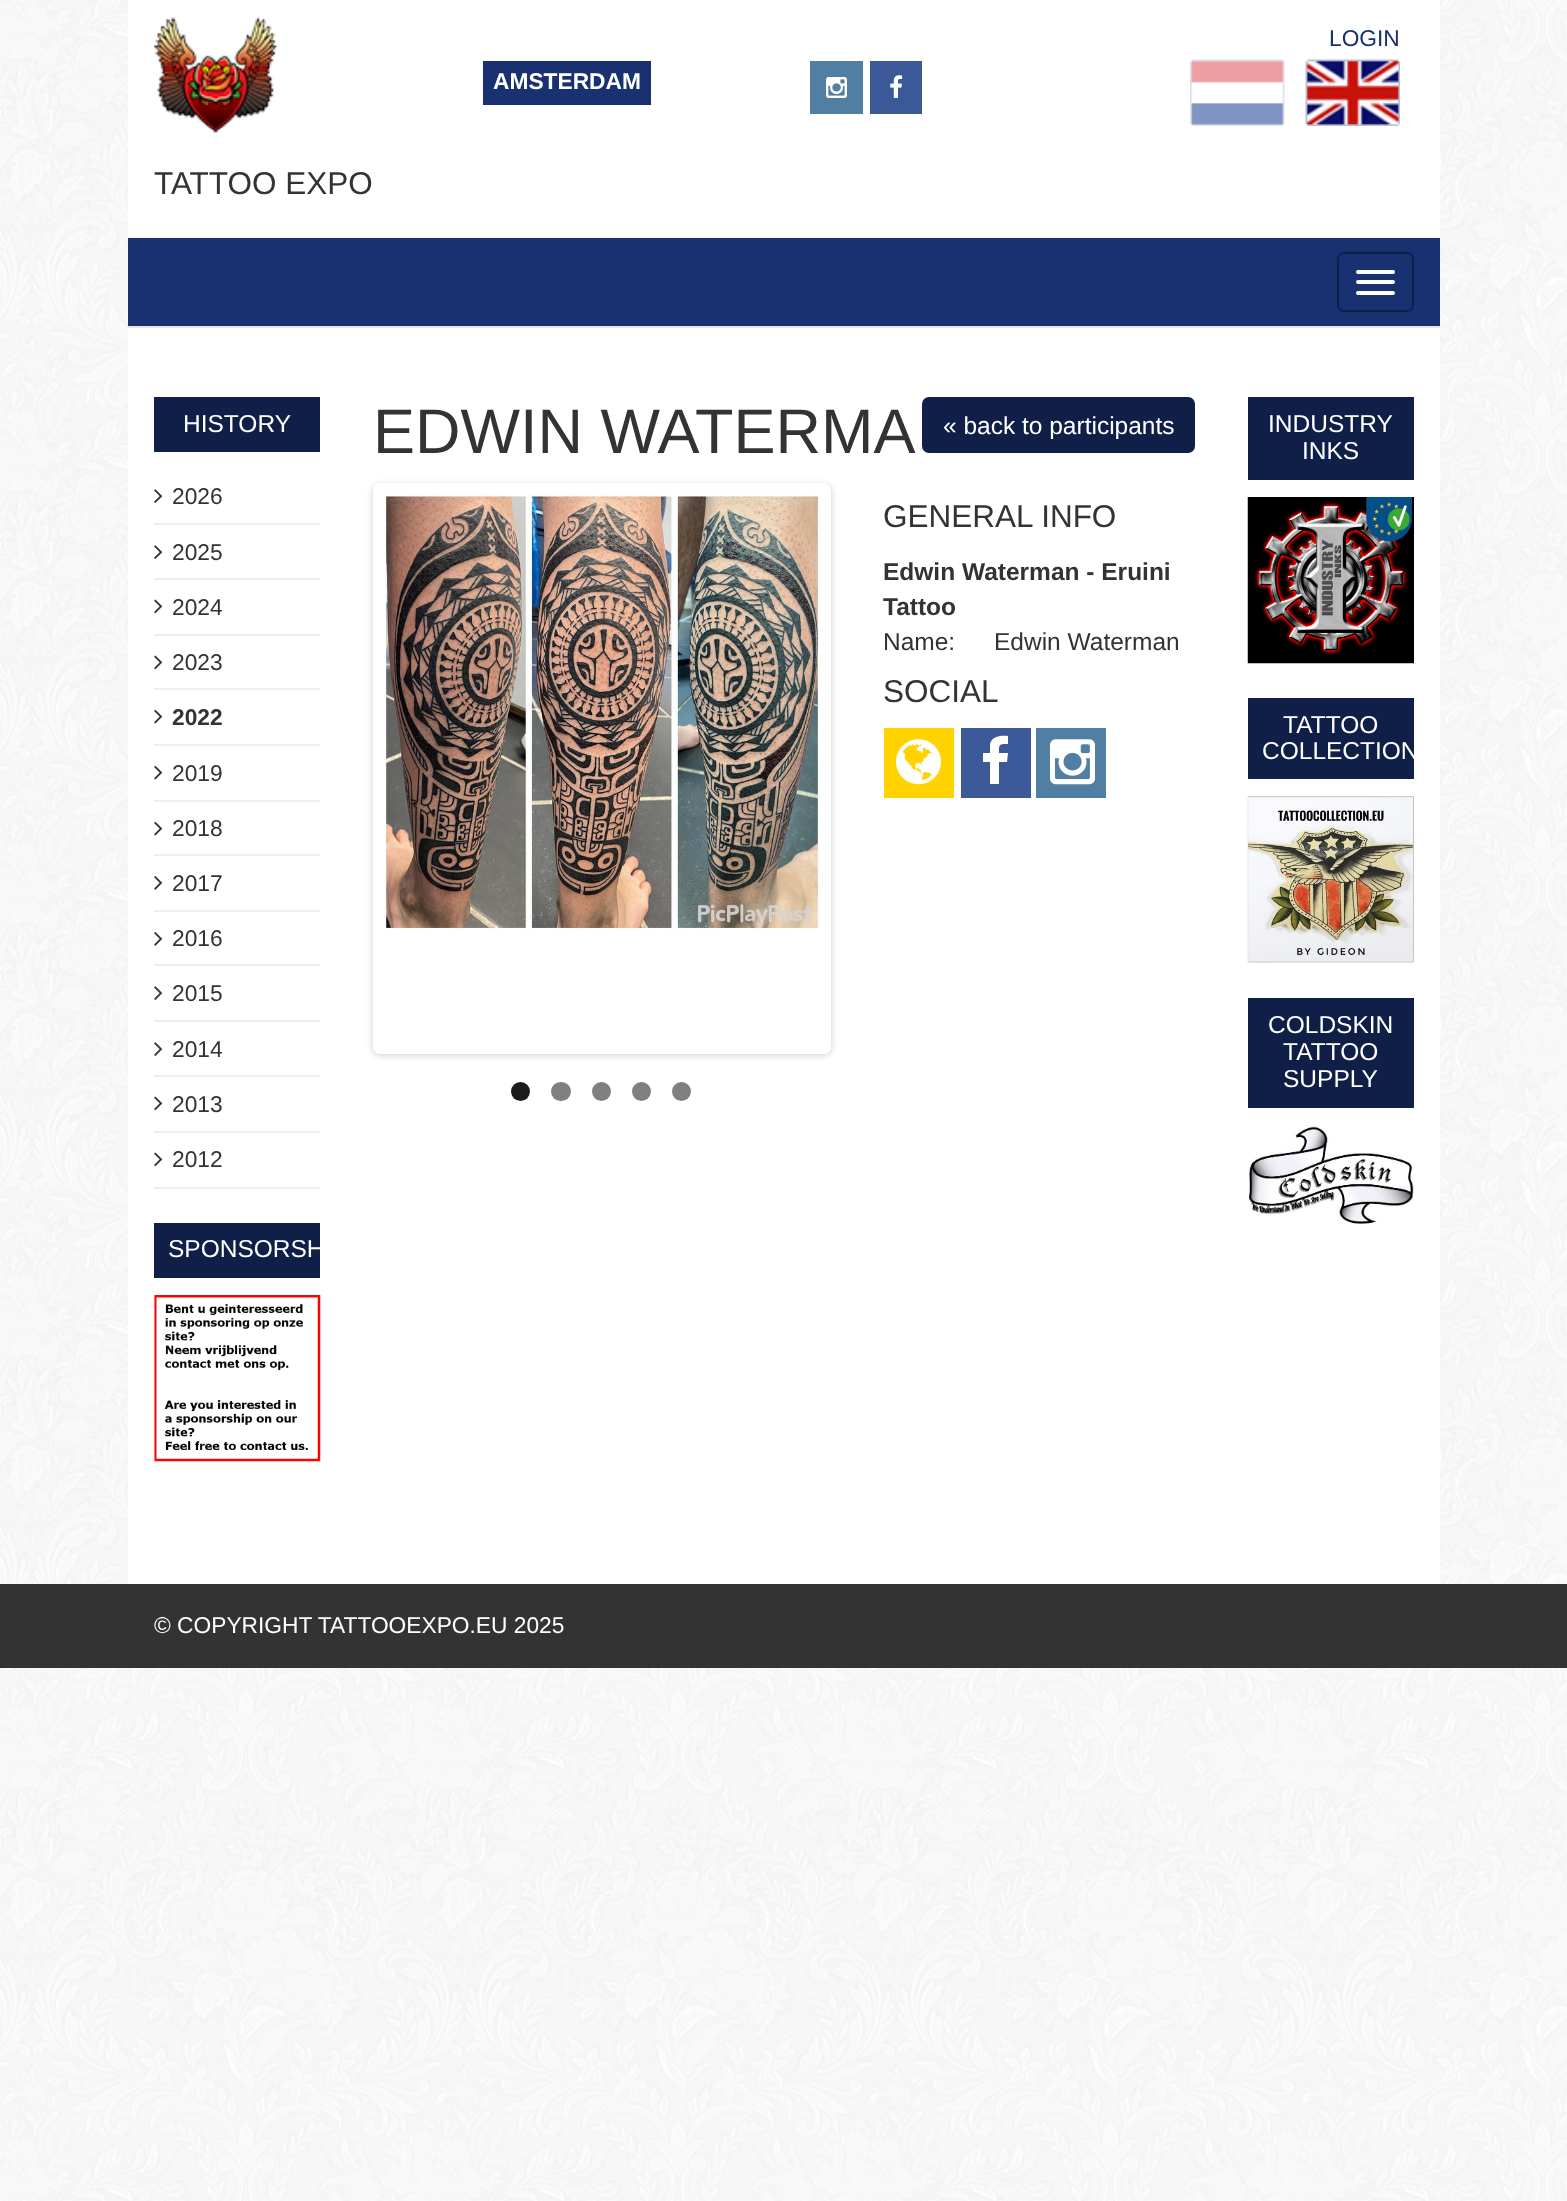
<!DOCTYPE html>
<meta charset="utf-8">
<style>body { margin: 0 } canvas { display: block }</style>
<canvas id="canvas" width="1567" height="2201"></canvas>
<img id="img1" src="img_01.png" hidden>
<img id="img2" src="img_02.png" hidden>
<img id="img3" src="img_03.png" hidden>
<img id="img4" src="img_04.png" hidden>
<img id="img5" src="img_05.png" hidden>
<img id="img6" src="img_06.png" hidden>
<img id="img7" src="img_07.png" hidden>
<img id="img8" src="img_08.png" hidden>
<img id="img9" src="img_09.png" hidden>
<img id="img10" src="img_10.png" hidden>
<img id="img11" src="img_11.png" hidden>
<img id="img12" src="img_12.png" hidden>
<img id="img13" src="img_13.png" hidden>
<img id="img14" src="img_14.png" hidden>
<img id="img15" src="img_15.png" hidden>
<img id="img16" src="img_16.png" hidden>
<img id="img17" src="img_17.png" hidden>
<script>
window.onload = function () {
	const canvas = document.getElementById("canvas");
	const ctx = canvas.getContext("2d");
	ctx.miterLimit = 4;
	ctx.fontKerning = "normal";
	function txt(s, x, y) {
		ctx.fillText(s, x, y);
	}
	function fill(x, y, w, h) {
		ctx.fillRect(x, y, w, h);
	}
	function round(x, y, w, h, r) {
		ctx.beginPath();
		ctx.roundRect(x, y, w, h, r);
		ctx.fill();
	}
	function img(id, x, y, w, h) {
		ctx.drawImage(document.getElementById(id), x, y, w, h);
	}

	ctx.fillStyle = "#FFFFFF";
	fill(0, 0, 1567, 2201);
	img("img1", 0, 0, 1567, 2201);
	fill(128, 0, 1312, 1584);
	img("img2", 1190, 59, 95, 67);
	img("img3", 1305, 59, 95, 67);
	ctx.fillStyle = "#1A3171";
	fill(483, 61, 168, 44);
	ctx.fillStyle = "#517FA4";
	fill(810, 61, 53, 53);
	img("img4", 826, 77, 21, 21);
	ctx.fillStyle = "#3B5998";
	fill(870, 61, 52, 53);
	img("img5", 890, 75, 13, 23);
	img("img6", 154, 17, 123, 116);
	ctx.fillStyle = "#1A3171";
	fill(128, 238, 1312, 88);
	ctx.fillStyle = "#E7E7E7";
	fill(128, 326, 1312, 2);
	ctx.beginPath();
	ctx.roundRect(1338, 253, 75, 58, 6);
	ctx.strokeStyle = "#101F48";
	ctx.lineWidth = 2;
	ctx.stroke();
	ctx.fillStyle = "#FFFFFF";
	round(1356, 270, 39, 4, 2);
	round(1356, 280, 39, 4, 2);
	round(1356, 291, 39, 4, 2);
	ctx.fillStyle = "#101F48";
	fill(154, 397, 166, 55);
	ctx.fillStyle = "#EEEEEE";
	fill(154, 523, 166, 2);
	img("img7", 154, 489, 9, 14);
	fill(154, 578, 166, 2);
	img("img7", 154, 545, 9, 14);
	fill(154, 634, 166, 2);
	img("img8", 154, 599, 9, 15);
	fill(154, 688, 166, 2);
	img("img8", 154, 655, 9, 15);
	fill(154, 744, 166, 2);
	img("img9", 154, 709, 9, 15);
	fill(154, 800, 166, 2);
	img("img9", 154, 765, 9, 15);
	fill(154, 854, 166, 2);
	img("img9", 154, 821, 9, 15);
	fill(154, 910, 166, 2);
	img("img10", 154, 876, 9, 14);
	fill(154, 964, 166, 2);
	img("img10", 154, 932, 9, 14);
	fill(154, 1020, 166, 2);
	img("img7", 154, 986, 9, 14);
	fill(154, 1075, 166, 2);
	img("img7", 154, 1042, 9, 14);
	fill(154, 1131, 166, 2);
	img("img8", 154, 1096, 9, 15);
	fill(154, 1187, 166, 2);
	img("img8", 154, 1152, 9, 15);
	ctx.fillStyle = "#101F48";
	fill(154, 1223, 166, 55);
	img("img11", 154, 1295, 167, 167);
	round(922, 397, 273, 56, 7);
	ctx.fillStyle = "rgba(0, 0, 0, 0.2)";
	ctx.filter = "blur(3.5px)";
	ctx.beginPath();
	ctx.roundRect(373, 485, 458, 570, 7);
	ctx.fill();
	ctx.filter = "none";
	ctx.fillStyle = "#FFFFFF";
	ctx.beginPath();
	ctx.roundRect(376.5, 486.5, 451, 564, 3.5);
	ctx.fill();
	ctx.strokeStyle = "#FFFFFF";
	ctx.lineWidth = 7;
	ctx.stroke();
	img("img12", 385, 495, 435, 435);
	ctx.fillStyle = "#1A1A1A";
	ctx.beginPath();
	ctx.arc(520.5, 1091.5, 9.5, 0, Math.PI * 2);
	ctx.fill();
	ctx.fillStyle = "#808080";
	round(551, 1082, 20, 19, 9.5);
	ctx.beginPath();
	ctx.arc(601.5, 1091.5, 9.5, 0, Math.PI * 2);
	ctx.fill();
	ctx.beginPath();
	ctx.arc(641.5, 1091.5, 9.5, 0, Math.PI * 2);
	ctx.fill();
	ctx.beginPath();
	ctx.arc(681.5, 1091.5, 9.5, 0, Math.PI * 2);
	ctx.fill();
	ctx.fillStyle = "#FFD200";
	fill(884, 728, 70, 70);
	img("img13", 896, 739, 45, 46);
	ctx.fillStyle = "#3B5998";
	fill(961, 728, 70, 70);
	ctx.fillStyle = "#FFFFFF";
	ctx.beginPath();
	ctx.moveTo(983, 762);
	ctx.lineTo(983, 753);
	ctx.lineTo(990, 753);
	ctx.lineTo(990, 744);
	ctx.bezierCurveTo(992, 736, 1001, 735, 1008, 736);
	ctx.lineTo(1008, 744);
	ctx.bezierCurveTo(999, 744, 999, 744, 999, 753);
	ctx.lineTo(1008, 753);
	ctx.lineTo(1007, 762);
	ctx.lineTo(999, 762);
	ctx.lineTo(999, 784);
	ctx.lineTo(990, 784);
	ctx.lineTo(990, 762);
	ctx.closePath();
	ctx.fill();
	ctx.fillStyle = "#517FA4";
	fill(1036, 728, 70, 70);
	img("img14", 1050, 739, 45, 46);
	ctx.fillStyle = "#101F48";
	fill(1248, 397, 166, 83);
	img("img15", 1247, 497, 167, 167);
	fill(1248, 698, 166, 81);
	img("img16", 1247, 796, 167, 167);
	fill(1248, 998, 166, 110);
	img("img17", 1248, 1125, 166, 99);
	ctx.fillStyle = "#333333";
	fill(0, 1584, 1567, 84);
	ctx.font = "22.75px Liberation Sans";
	ctx.fillStyle = "#1A3171";
	txt("LOGIN", 1329, 46);
	ctx.font = "bold 22.75px Liberation Sans";
	ctx.fillStyle = "#FFFFFF";
	txt("AMSTERDAM", 493, 89);
	ctx.font = "31.5px Liberation Sans";
	ctx.fillStyle = "#333333";
	txt("TATTOO EXPO", 154, 194);
	ctx.font = "24.5px Liberation Sans";
	ctx.fillStyle = "#FFFFFF";
	txt("HISTORY", 183, 432);
	ctx.font = "22.75px Liberation Sans";
	ctx.fillStyle = "#333333";
	txt("2026", 172, 504);
	txt("2025", 172, 560);
	txt("2024", 172, 615);
	txt("2023", 172, 670);
	ctx.font = "bold 22.75px Liberation Sans";
	txt("2022", 172, 725);
	ctx.font = "22.75px Liberation Sans";
	txt("2019", 172, 781);
	txt("2018", 172, 836);
	txt("2017", 172, 891);
	txt("2016", 172, 946);
	txt("2015", 172, 1001);
	txt("2014", 172, 1057);
	txt("2013", 172, 1112);
	txt("2012", 172, 1167);
	ctx.font = "24.5px Liberation Sans";
	ctx.fillStyle = "#FFFFFF";
	txt("SPONSORSH", 168, 1257);
	ctx.font = "63px Liberation Sans";
	ctx.fillStyle = "#333333";
	txt("EDWIN WATERMA", 373, 453);
	ctx.font = "24.5px Liberation Sans";
	ctx.fillStyle = "#FFFFFF";
	txt("« back to participants", 943, 434);
	ctx.font = "31.5px Liberation Sans";
	ctx.fillStyle = "#333333";
	txt("GENERAL INFO", 883, 527);
	ctx.font = "bold 24.5px Liberation Sans";
	txt("Edwin Waterman - Eruini", 883, 580);
	txt("Tattoo", 883, 615);
	ctx.font = "24.5px Liberation Sans";
	txt("Name:", 883, 650);
	txt("Edwin Waterman", 994, 650);
	ctx.font = "31.5px Liberation Sans";
	txt("SOCIAL", 883, 702);
	ctx.font = "24.5px Liberation Sans";
	ctx.fillStyle = "#FFFFFF";
	txt("INDUSTRY", 1268, 432);
	txt("INKS", 1302, 459);
	txt("TATTOO", 1283, 733);
	txt("COLLECTION", 1262, 759);
	txt("COLDSKIN", 1268, 1033);
	txt("TATTOO", 1283, 1060);
	txt("SUPPLY", 1283, 1087);
	ctx.font = "22.75px Liberation Sans";
	txt("© COPYRIGHT TATTOOEXPO.EU 2025", 154, 1633);
};
</script>
